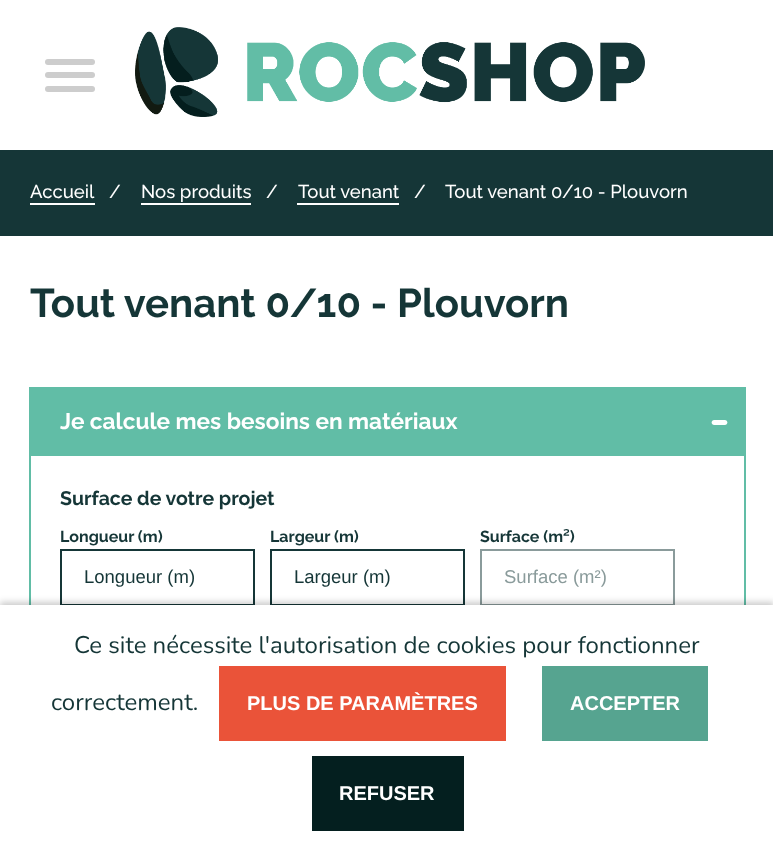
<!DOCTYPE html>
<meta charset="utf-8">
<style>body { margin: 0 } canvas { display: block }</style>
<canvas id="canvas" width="773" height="868"></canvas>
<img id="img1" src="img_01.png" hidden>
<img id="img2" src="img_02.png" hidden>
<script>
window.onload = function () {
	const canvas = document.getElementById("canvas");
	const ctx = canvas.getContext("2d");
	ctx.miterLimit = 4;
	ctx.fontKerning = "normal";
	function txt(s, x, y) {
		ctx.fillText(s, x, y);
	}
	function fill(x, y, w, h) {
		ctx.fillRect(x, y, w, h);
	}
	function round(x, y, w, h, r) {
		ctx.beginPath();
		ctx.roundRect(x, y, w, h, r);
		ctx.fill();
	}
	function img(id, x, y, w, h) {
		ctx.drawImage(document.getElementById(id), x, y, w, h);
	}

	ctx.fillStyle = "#FFFFFF";
	fill(0, 0, 773, 868);
	ctx.fillStyle = "#CDCDCD";
	round(45, 59, 50, 6, 3);
	round(45, 72, 50, 6, 3);
	round(45, 86, 50, 6, 3);
	img("img1", 135, 27, 510, 90);
	ctx.fillStyle = "#153637";
	fill(0, 150, 773, 86);
	ctx.fillStyle = "#FFFFFF";
	fill(30, 203, 65, 2);
	fill(141, 203, 110, 2);
	fill(297, 203, 102, 2);
	ctx.strokeStyle = "#153637";
	ctx.lineWidth = 2;
	ctx.strokeRect(61, 550, 193, 55);
	ctx.strokeRect(271, 550, 193, 55);
	ctx.strokeStyle = "#8A9B9B";
	ctx.strokeRect(481, 550, 193, 55);
	ctx.strokeStyle = "#61BDA6";
	ctx.strokeRect(30, 388, 715, 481);
	ctx.fillStyle = "#61BDA6";
	fill(31, 389, 713, 67);
	img("img2", 711, 420, 17, 5);
	ctx.fillStyle = "rgba(0, 0, 0, 0.2)";
	ctx.filter = "blur(3px)";
	ctx.beginPath();
	ctx.rect(0, 602, 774, 264);
	ctx.fill();
	ctx.filter = "none";
	ctx.fillStyle = "#FFFFFF";
	fill(0, 605, 773, 263);
	ctx.fillStyle = "#EA5339";
	fill(219, 666, 287, 75);
	ctx.fillStyle = "#56A490";
	fill(542, 666, 166, 75);
	ctx.fillStyle = "#041F1F";
	fill(312, 756, 152, 75);
	ctx.font = "500 18.5px Raleway";
	ctx.fillStyle = "#FFFFFF";
	txt("Accueil", 30, 198);
	txt("/", 109, 198);
	txt("Nos produits", 141, 198);
	txt("/", 266, 198);
	txt("Tout venant", 298, 198);
	txt("/", 414, 198);
	txt("Tout venant 0/10 - Plouvorn", 445, 198);
	ctx.font = "bold 40.1px Raleway";
	ctx.fillStyle = "#153637";
	txt("Tout venant 0/10 - Plouvorn", 30, 317);
	ctx.font = "bold 22.6px Raleway";
	ctx.fillStyle = "#FFFFFF";
	txt("Je calcule mes besoins en matériaux", 60, 429);
	ctx.font = "bold 19.5px Raleway";
	ctx.fillStyle = "#153637";
	txt("Surface de votre projet", 60, 505);
	ctx.font = "bold 16px Raleway";
	txt("Longueur (m)", 60, 542);
	ctx.font = "18.5px Liberation Sans";
	txt("Longueur (m)", 84, 583);
	ctx.font = "bold 16px Raleway";
	txt("Largeur (m)", 270, 542);
	ctx.font = "18.5px Liberation Sans";
	txt("Largeur (m)", 294, 583);
	ctx.font = "bold 16px Raleway";
	txt("Surface (m²)", 480, 542);
	ctx.font = "18.5px Liberation Sans";
	ctx.fillStyle = "#8A9B9B";
	txt("Surface (m²)", 504, 583);
	ctx.font = "24px Nunito";
	ctx.fillStyle = "#153637";
	txt("Ce site nécessite l'autorisation de cookies pour fonctionner", 74, 653);
	txt("correctement.", 51, 710);
	ctx.font = "bold 20px Liberation Sans";
	ctx.fillStyle = "#FFFFFF";
	txt("PLUS DE PARAMÈTRES", 247, 710);
	txt("ACCEPTER", 570, 710);
	txt("REFUSER", 339, 800);
};
</script>
